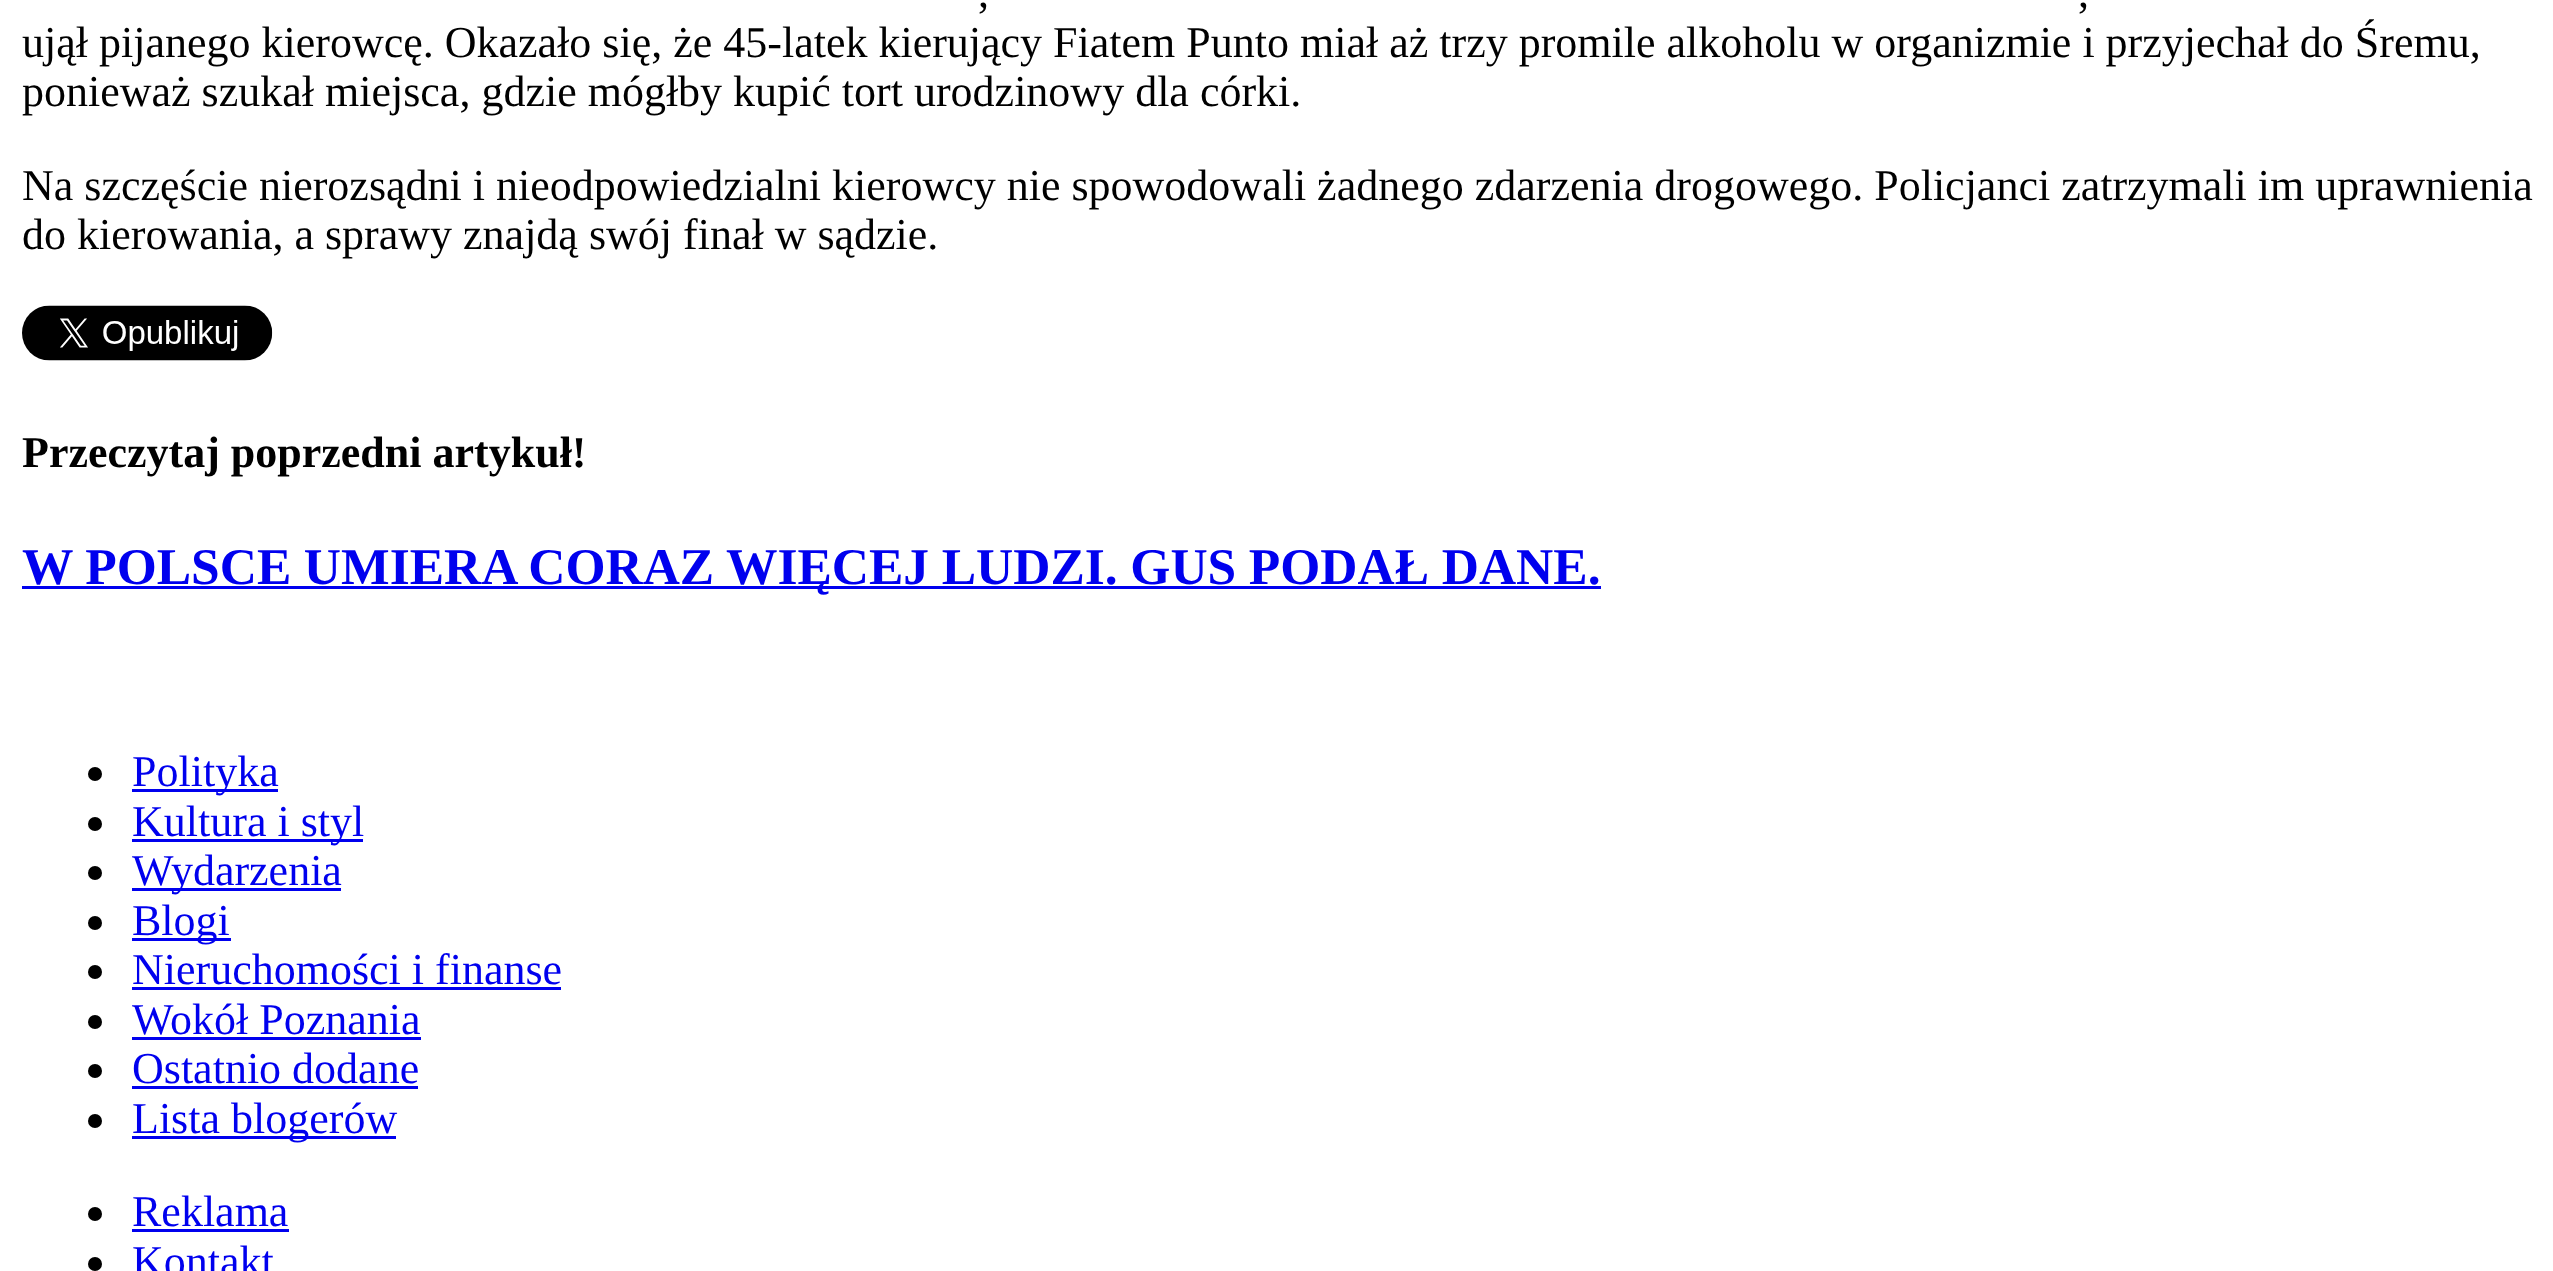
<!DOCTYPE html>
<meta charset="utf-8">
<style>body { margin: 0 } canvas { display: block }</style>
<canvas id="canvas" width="2553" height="1271"></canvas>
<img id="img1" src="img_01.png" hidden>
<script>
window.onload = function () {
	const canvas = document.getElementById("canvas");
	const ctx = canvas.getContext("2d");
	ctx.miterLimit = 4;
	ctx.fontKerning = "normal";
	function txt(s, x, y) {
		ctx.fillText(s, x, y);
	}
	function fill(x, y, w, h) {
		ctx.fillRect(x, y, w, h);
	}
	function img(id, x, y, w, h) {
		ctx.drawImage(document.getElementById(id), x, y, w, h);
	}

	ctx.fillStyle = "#FFFFFF";
	fill(0, 0, 2553, 1271);
	img("img1", 22, 305, 251, 56);
	ctx.fillStyle = "#0000EE";
	fill(22, 586, 1579, 3);
	ctx.fillStyle = "#000000";
	ctx.beginPath();
	ctx.arc(95, 774, 7, 0, Math.PI * 2);
	ctx.fill();
	ctx.fillStyle = "#0000EE";
	fill(132, 789, 146, 3);
	ctx.fillStyle = "#000000";
	ctx.beginPath();
	ctx.arc(95, 824, 7, 0, Math.PI * 2);
	ctx.fill();
	ctx.fillStyle = "#0000EE";
	fill(132, 839, 231, 3);
	ctx.fillStyle = "#000000";
	ctx.beginPath();
	ctx.arc(95, 873, 7, 0, Math.PI * 2);
	ctx.fill();
	ctx.fillStyle = "#0000EE";
	fill(132, 888, 209, 3);
	ctx.fillStyle = "#000000";
	ctx.beginPath();
	ctx.arc(95, 923, 7, 0, Math.PI * 2);
	ctx.fill();
	ctx.fillStyle = "#0000EE";
	fill(132, 938, 99, 3);
	ctx.fillStyle = "#000000";
	ctx.beginPath();
	ctx.arc(95, 972, 7, 0, Math.PI * 2);
	ctx.fill();
	ctx.fillStyle = "#0000EE";
	fill(132, 987, 429, 3);
	ctx.fillStyle = "#000000";
	ctx.beginPath();
	ctx.arc(95, 1022, 7, 0, Math.PI * 2);
	ctx.fill();
	ctx.fillStyle = "#0000EE";
	fill(132, 1037, 289, 3);
	ctx.fillStyle = "#000000";
	ctx.beginPath();
	ctx.arc(95, 1071, 7, 0, Math.PI * 2);
	ctx.fill();
	ctx.fillStyle = "#0000EE";
	fill(132, 1086, 286, 3);
	ctx.fillStyle = "#000000";
	ctx.beginPath();
	ctx.arc(95, 1121, 7, 0, Math.PI * 2);
	ctx.fill();
	ctx.fillStyle = "#0000EE";
	fill(132, 1136, 264, 3);
	ctx.fillStyle = "#000000";
	ctx.beginPath();
	ctx.arc(95, 1214, 7, 0, Math.PI * 2);
	ctx.fill();
	ctx.fillStyle = "#0000EE";
	fill(132, 1229, 157, 3);
	ctx.fillStyle = "#000000";
	ctx.beginPath();
	ctx.arc(95, 1264, 7, 0, Math.PI * 2);
	ctx.fill();
	ctx.font = "44px Liberation Serif";
	txt(",", 978, 7);
	txt(",", 2078, 7);
	txt("ujął pijanego kierowcę. Okazało się, że 45-latek kierujący Fiatem Punto miał aż trzy promile alkoholu w organizmie i przyjechał do Śremu,", 22, 57);
	txt("ponieważ szukał miejsca, gdzie mógłby kupić tort urodzinowy dla córki.", 22, 106);
	txt("Na szczęście nierozsądni i nieodpowiedzialni kierowcy nie spowodowali żadnego zdarzenia drogowego. Policjanci zatrzymali im uprawnienia", 22, 200);
	txt("do kierowania, a sprawy znajdą swój finał w sądzie.", 22, 249);
	ctx.font = "bold 44px Liberation Serif";
	txt("Przeczytaj poprzedni artykuł!", 22, 467);
	ctx.wordSpacing = "-0.25px";
	ctx.font = "bold 51.5px Liberation Serif";
	ctx.fillStyle = "#0000EE";
	txt("W POLSCE UMIERA CORAZ WIĘCEJ LUDZI. GUS PODAŁ DANE.", 22, 584);
	ctx.wordSpacing = "0px";
	ctx.font = "44px Liberation Serif";
	txt("Polityka", 132, 786);
	txt("Kultura i styl", 132, 836);
	txt("Wydarzenia", 132, 885);
	txt("Blogi", 132, 935);
	txt("Nieruchomości i finanse", 132, 984);
	txt("Wokół Poznania", 132, 1034);
	txt("Ostatnio dodane", 132, 1083);
	txt("Lista blogerów", 132, 1133);
	txt("Reklama", 132, 1226);
	txt("Kontakt", 132, 1276);
};
</script>
